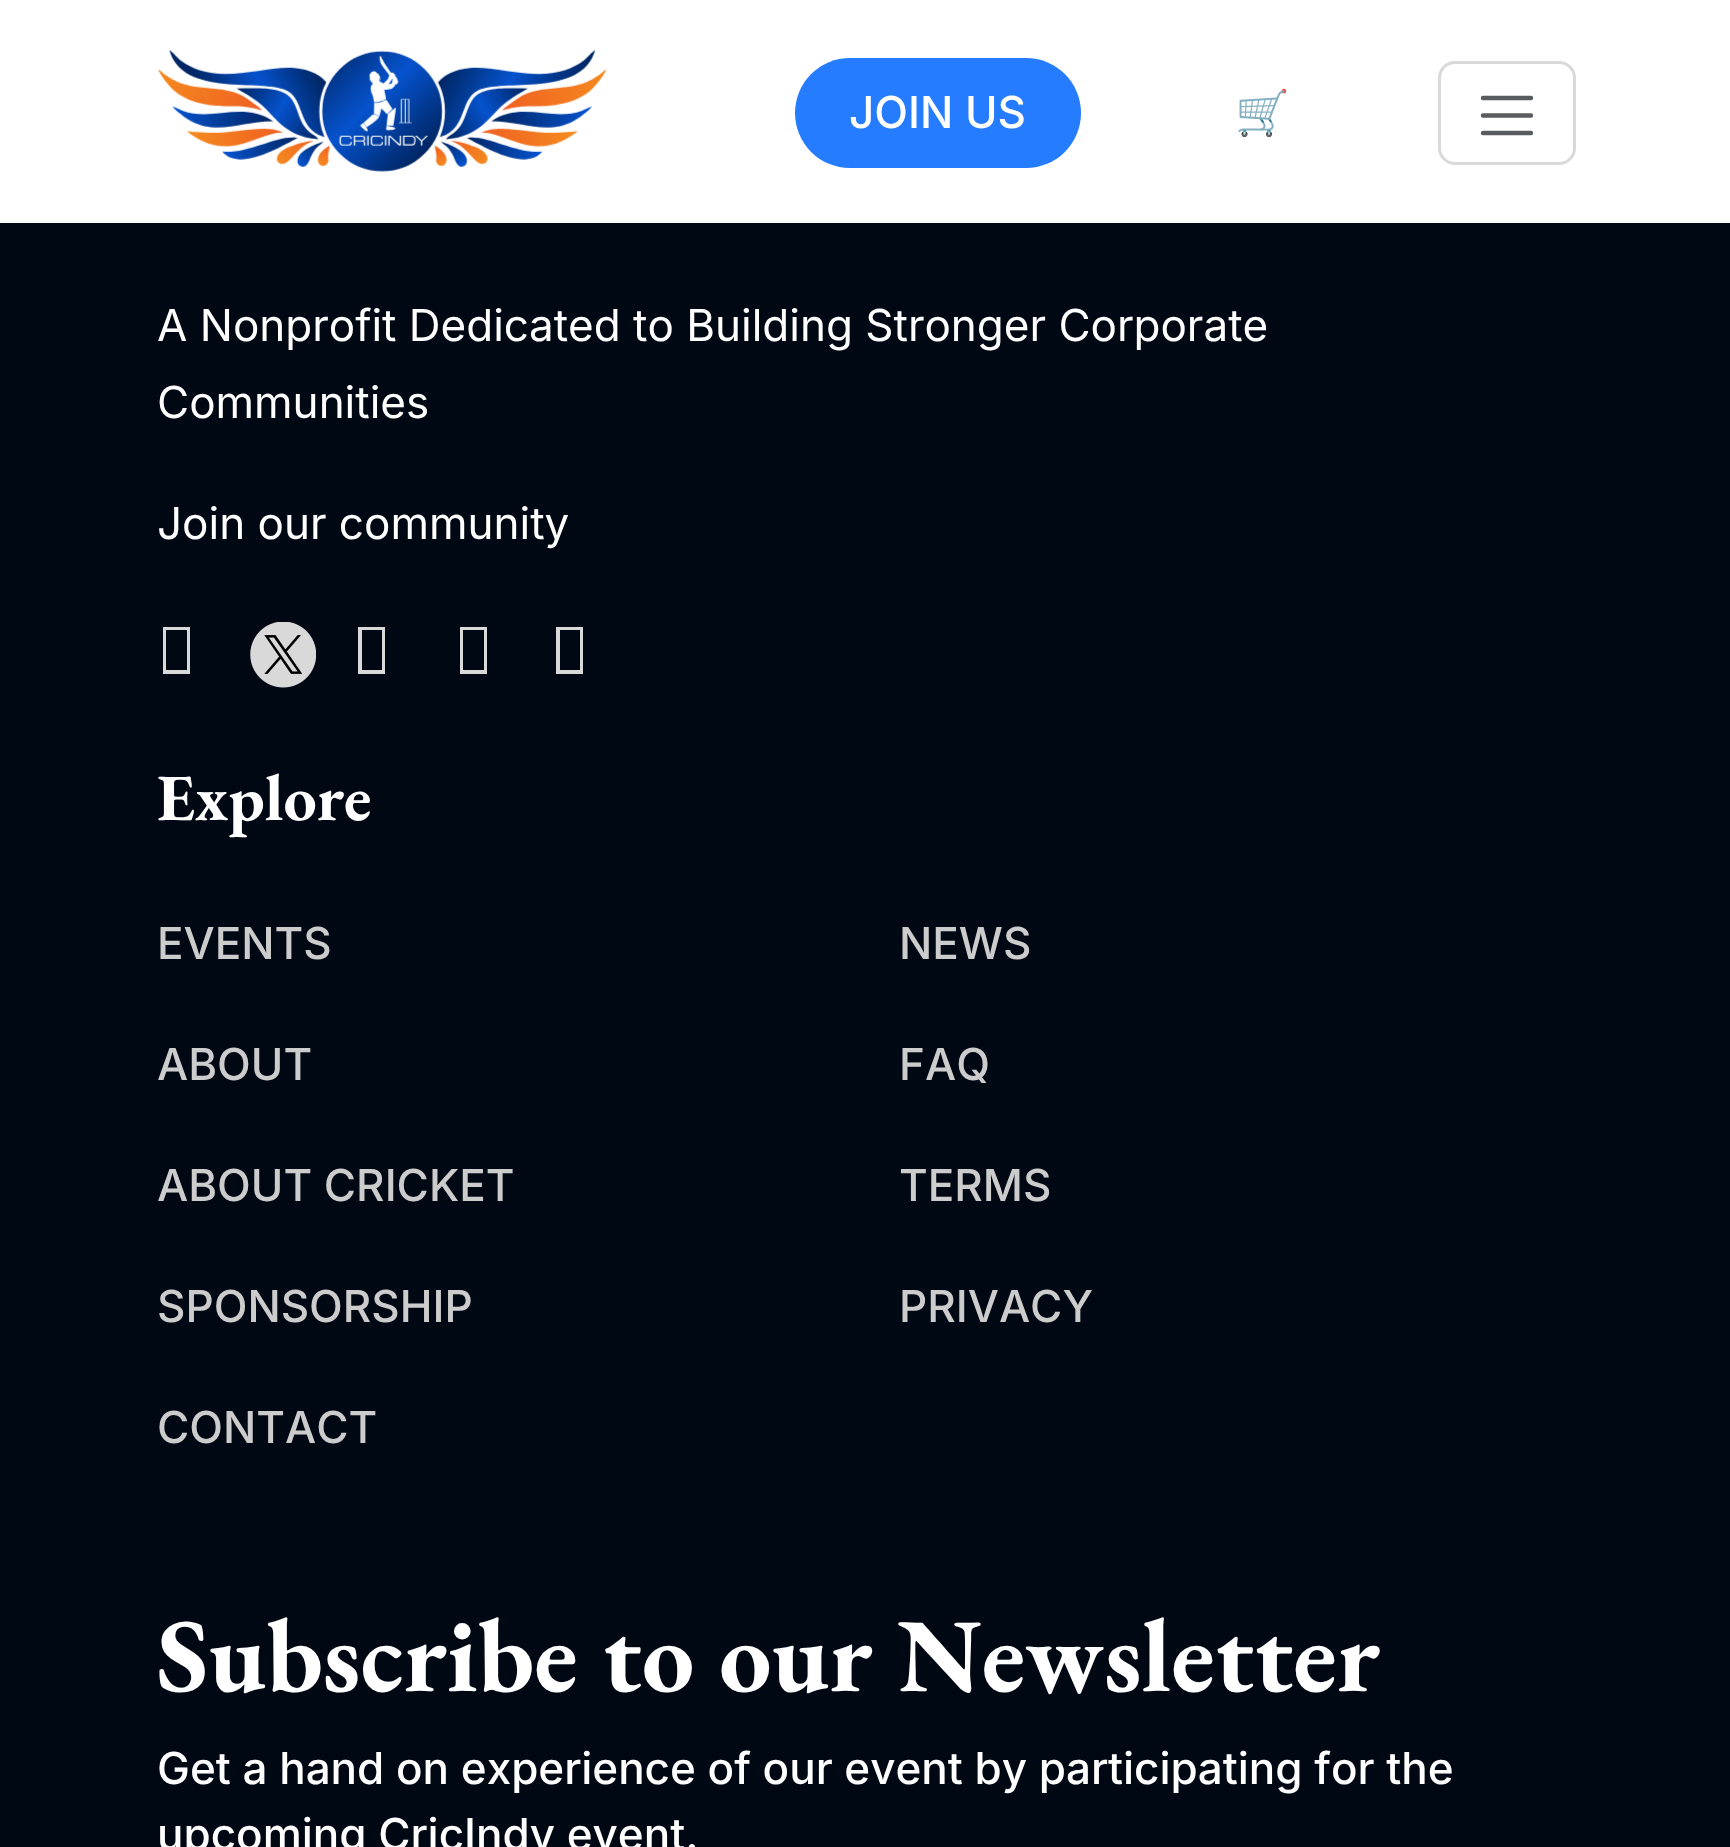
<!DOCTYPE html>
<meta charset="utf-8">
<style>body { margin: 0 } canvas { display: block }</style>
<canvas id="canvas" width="1730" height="1847"></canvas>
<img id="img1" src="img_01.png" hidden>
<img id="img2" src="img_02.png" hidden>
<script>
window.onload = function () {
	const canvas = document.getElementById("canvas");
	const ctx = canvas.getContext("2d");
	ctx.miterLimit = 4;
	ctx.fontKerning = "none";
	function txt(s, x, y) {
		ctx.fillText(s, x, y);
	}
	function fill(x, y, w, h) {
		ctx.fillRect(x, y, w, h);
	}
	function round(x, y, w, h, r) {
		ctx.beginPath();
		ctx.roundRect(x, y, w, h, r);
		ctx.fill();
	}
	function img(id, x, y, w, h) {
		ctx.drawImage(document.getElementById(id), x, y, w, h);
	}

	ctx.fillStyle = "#000813";
	fill(0, 0, 1730, 1847);
	ctx.fillStyle = "#FFFFFF";
	fill(0, 0, 1730, 223);
	img("img1", 157, 49, 450, 123);
	ctx.fillStyle = "#257CFF";
	round(795, 58, 286, 110, 55);
	ctx.beginPath();
	ctx.roundRect(1439.5, 62.5, 135, 101, 15.5);
	ctx.strokeStyle = "#D9D9D9";
	ctx.lineWidth = 3;
	ctx.stroke();
	ctx.beginPath();
	ctx.moveTo(1483, 98);
	ctx.lineTo(1531, 98);
	ctx.moveTo(1483, 115.5);
	ctx.lineTo(1531, 115.5);
	ctx.moveTo(1483, 133);
	ctx.lineTo(1531, 133);
	ctx.strokeStyle = "#595C5F";
	ctx.lineWidth = 4.4;
	ctx.lineCap = "round";
	ctx.stroke();
	ctx.fillStyle = "#D9D9D9";
	ctx.beginPath();
	ctx.moveTo(163, 674);
	ctx.lineTo(163, 627);
	ctx.lineTo(190, 627);
	ctx.lineTo(190, 674);
	ctx.closePath();
	ctx.moveTo(166, 670);
	ctx.lineTo(187, 670);
	ctx.lineTo(187, 630);
	ctx.lineTo(166, 630);
	ctx.closePath();
	ctx.fill();
	img("img2", 250, 622, 66, 66);
	ctx.beginPath();
	ctx.moveTo(358, 674);
	ctx.lineTo(358, 627);
	ctx.lineTo(385, 627);
	ctx.lineTo(385, 674);
	ctx.closePath();
	ctx.moveTo(362, 670);
	ctx.lineTo(382, 670);
	ctx.lineTo(382, 630);
	ctx.lineTo(362, 630);
	ctx.closePath();
	ctx.fill();
	ctx.beginPath();
	ctx.moveTo(460, 674);
	ctx.lineTo(460, 627);
	ctx.lineTo(487, 627);
	ctx.lineTo(487, 674);
	ctx.closePath();
	ctx.moveTo(463, 670);
	ctx.lineTo(484, 670);
	ctx.lineTo(484, 630);
	ctx.lineTo(463, 630);
	ctx.closePath();
	ctx.fill();
	ctx.beginPath();
	ctx.moveTo(556, 674);
	ctx.lineTo(556, 627);
	ctx.lineTo(583, 627);
	ctx.lineTo(583, 674);
	ctx.closePath();
	ctx.moveTo(560, 670);
	ctx.lineTo(580, 670);
	ctx.lineTo(580, 630);
	ctx.lineTo(560, 630);
	ctx.closePath();
	ctx.fill();
	ctx.font = "500 44px Inter";
	ctx.fillStyle = "#FFFFFF";
	txt("JOIN US", 849, 128);
	ctx.font = "100 44px Noto Sans";
	ctx.fillStyle = "#000000";
	txt("🛒", 1235, 128);
	ctx.font = "44px Inter";
	ctx.fillStyle = "#FFFFFF";
	txt("A Nonprofit Dedicated to Building Stronger Corporate", 157, 341);
	txt("Communities", 157, 418);
	txt("Join our community", 157, 539);
	ctx.font = "bold 66px EB Garamond";
	txt("Explore", 157, 820);
	ctx.font = "500 44px Inter";
	ctx.fillStyle = "#CCCCCC";
	txt("EVENTS", 157, 959);
	txt("ABOUT", 157, 1080);
	txt("ABOUT CRICKET", 157, 1201);
	txt("SPONSORSHIP", 157, 1322);
	txt("CONTACT", 157, 1443);
	txt("NEWS", 899, 959);
	txt("FAQ", 899, 1080);
	txt("TERMS", 899, 1201);
	txt("PRIVACY", 899, 1322);
	ctx.font = "bold 104.5px EB Garamond";
	ctx.fillStyle = "#FFFFFF";
	txt("Subscribe to our Newsletter", 157, 1691);
	ctx.font = "500 44px Inter";
	txt("Get a hand on experience of our event by participating for the", 157, 1784);
	txt("upcoming CricIndy event.", 157, 1850);
};
</script>
